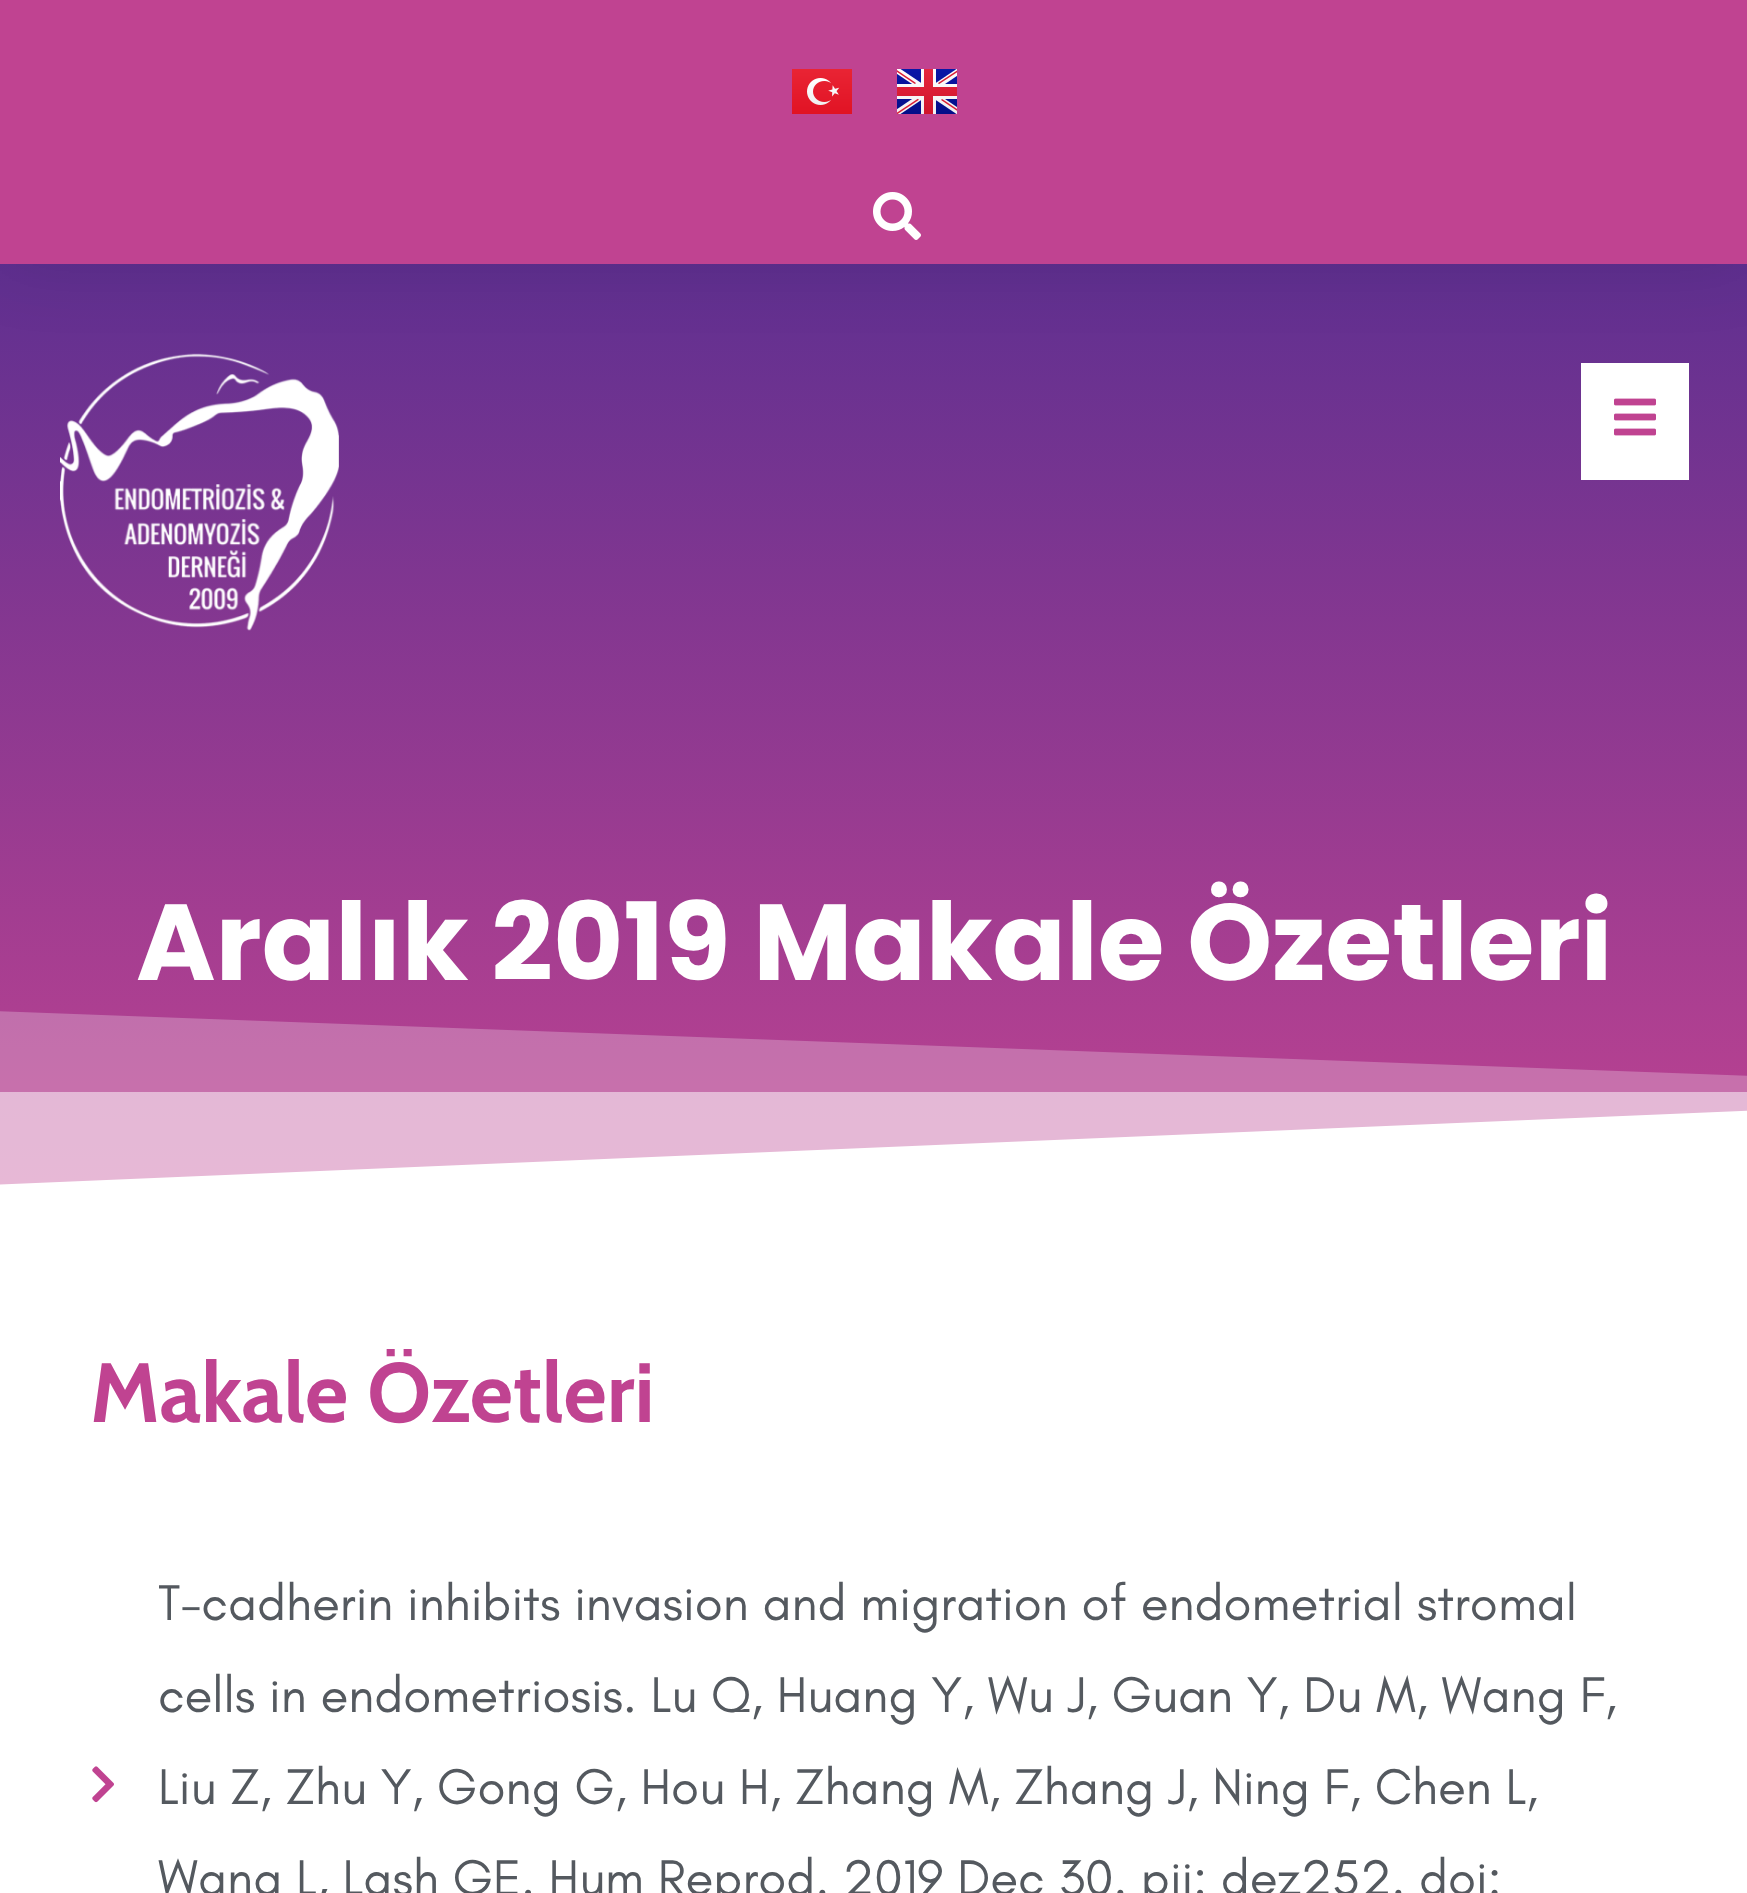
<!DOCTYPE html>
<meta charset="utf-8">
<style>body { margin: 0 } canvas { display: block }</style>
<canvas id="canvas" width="1747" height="1893"></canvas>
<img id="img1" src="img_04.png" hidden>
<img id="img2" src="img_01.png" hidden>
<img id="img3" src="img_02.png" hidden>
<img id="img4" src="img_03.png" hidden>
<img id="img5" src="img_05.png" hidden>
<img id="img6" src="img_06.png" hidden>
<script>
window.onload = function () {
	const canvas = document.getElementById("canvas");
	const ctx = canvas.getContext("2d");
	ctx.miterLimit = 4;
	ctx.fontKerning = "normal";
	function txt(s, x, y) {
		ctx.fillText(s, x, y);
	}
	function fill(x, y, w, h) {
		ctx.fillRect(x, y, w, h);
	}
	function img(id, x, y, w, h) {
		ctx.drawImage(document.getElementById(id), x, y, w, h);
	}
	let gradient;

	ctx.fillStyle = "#FFFFFF";
	fill(0, 0, 1747, 1893);
	gradient = ctx.createLinearGradient(875, 0, 875, 1200);
	gradient.addColorStop(0, "#442A90");
	gradient.addColorStop(1, "#C04391");
	ctx.fillStyle = gradient;
	fill(0, 264, 1747, 828);
	img("img1", 60, 353, 279, 278);
	ctx.fillStyle = "#FFFFFF";
	fill(1581, 363, 108, 117);
	ctx.fillStyle = "rgba(0, 0, 0, 0.1)";
	ctx.filter = "blur(36px)";
	ctx.beginPath();
	ctx.rect(0, 0, 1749, 264);
	ctx.fill();
	ctx.filter = "none";
	ctx.fillStyle = "#C04391";
	fill(0, 0, 1747, 264);
	img("img2", 792, 69, 60, 45);
	img("img3", 897, 69, 60, 45);
	img("img4", 873, 192, 48, 48);
	img("img5", 1614, 398, 42, 38);
	gradient = ctx.createLinearGradient(875, 0, 875, 1200);
	gradient.addColorStop(0, "#A295C8");
	gradient.addColorStop(1, "#E0A1C8");
	ctx.fillStyle = gradient;
	fill(0, 1092, 1747, 93);
	ctx.fillStyle = "#FFFFFF";
	ctx.beginPath();
	ctx.moveTo(-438, 1203);
	ctx.lineTo(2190, 1203);
	ctx.lineTo(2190, 1092);
	ctx.closePath();
	ctx.fill();
	ctx.fillStyle = "rgba(255, 255, 255, 0.25)";
	ctx.beginPath();
	ctx.moveTo(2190, 1203);
	ctx.lineTo(-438, 1203);
	ctx.lineTo(-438, 995);
	ctx.lineTo(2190, 1092);
	ctx.closePath();
	ctx.fill();
	img("img6", 92, 1766, 22, 37);
	ctx.font = "bold 108px Poppins";
	ctx.fillStyle = "#FFFFFF";
	txt("Aralık 2019 Makale Özetleri", 136, 980);
	ctx.font = "bold 84px Cabin";
	ctx.fillStyle = "#C04391";
	txt("Makale Özetleri", 90, 1422);
	ctx.font = "51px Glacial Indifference";
	ctx.fillStyle = "#54595F";
	txt("T-cadherin inhibits invasion and migration of endometrial stromal", 158, 1620);
	txt("cells in endometriosis. Lu Q, Huang Y, Wu J, Guan Y, Du M, Wang F,", 158, 1712);
	txt("Liu Z, Zhu Y, Gong G, Hou H, Zhang M, Zhang J, Ning F, Chen L,", 158, 1804);
	txt("Wang L, Lash GE. Hum Reprod. 2019 Dec 30. pii: dez252. doi:", 158, 1895);
};
</script>
